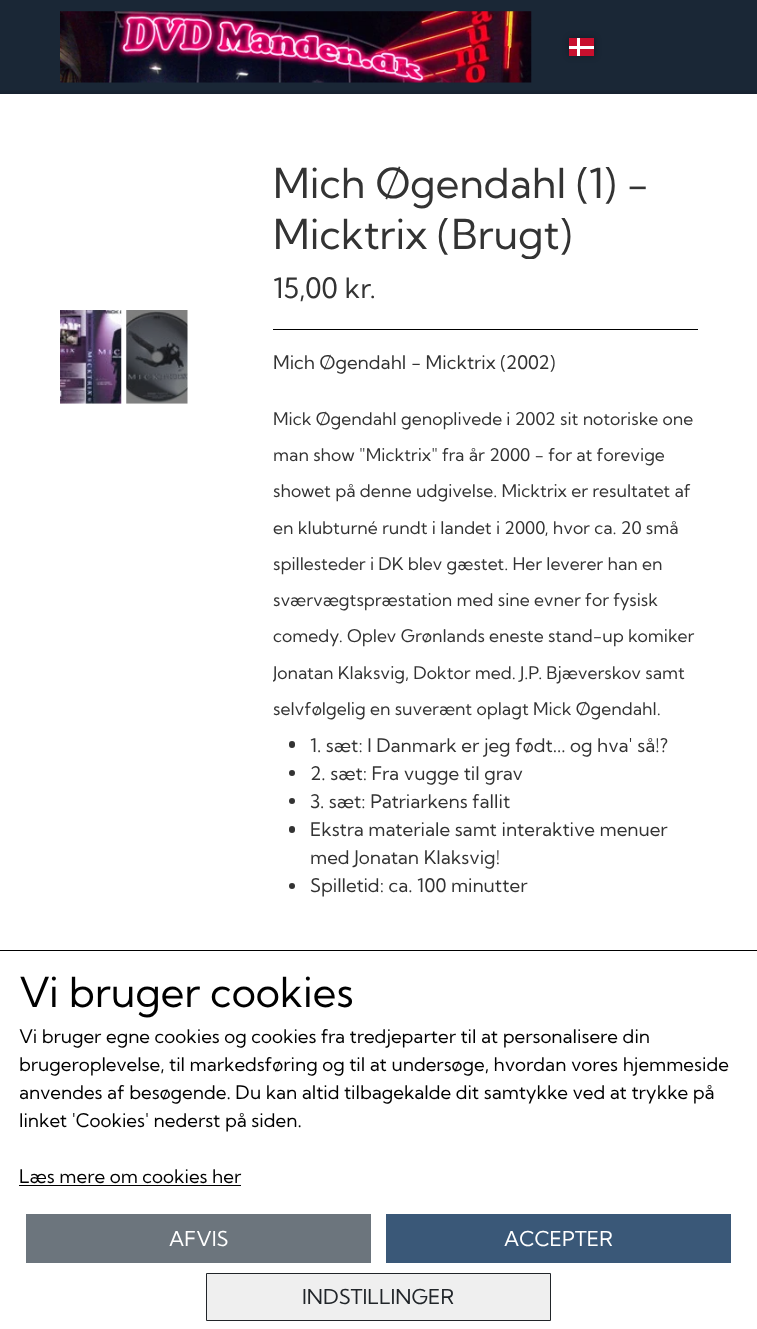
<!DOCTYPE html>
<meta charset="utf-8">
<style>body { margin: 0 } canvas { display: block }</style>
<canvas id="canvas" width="757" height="1329"></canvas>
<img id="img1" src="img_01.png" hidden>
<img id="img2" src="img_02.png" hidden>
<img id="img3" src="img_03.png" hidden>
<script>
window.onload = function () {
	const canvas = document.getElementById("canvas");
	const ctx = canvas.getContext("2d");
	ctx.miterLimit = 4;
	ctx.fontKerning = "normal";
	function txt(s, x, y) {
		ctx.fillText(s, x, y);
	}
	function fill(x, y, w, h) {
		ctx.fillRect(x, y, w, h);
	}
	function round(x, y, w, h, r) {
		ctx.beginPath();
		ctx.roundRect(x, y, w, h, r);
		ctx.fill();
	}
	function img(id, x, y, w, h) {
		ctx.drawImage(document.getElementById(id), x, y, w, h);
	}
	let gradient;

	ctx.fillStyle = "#1A2736";
	fill(0, 0, 757, 1329);
	img("img1", 60, 11, 472, 72);
	ctx.fillStyle = "rgba(0, 0, 0, 0.3)";
	ctx.filter = "blur(3px)";
	ctx.beginPath();
	ctx.rect(569, 38, 26, 18);
	ctx.fill();
	ctx.filter = "none";
	ctx.fillStyle = "#C8102E";
	fill(569, 38, 25, 18);
	ctx.fillStyle = "#FFFFFF";
	fill(577, 38, 3, 18);
	fill(569, 46, 25, 3);
	gradient = ctx.createLinearGradient(379, 94, 379, 88);
	gradient.addColorStop(0, "#16212E");
	gradient.addColorStop(1, "#1A2736");
	ctx.fillStyle = gradient;
	fill(0, 90, 757, 4);
	ctx.fillStyle = "#FFFFFF";
	fill(0, 94, 757, 856);
	img("img2", 60, 310, 62, 94);
	img("img3", 126, 310, 62, 94);
	ctx.fillStyle = "#000000";
	fill(273, 329, 425, 1);
	ctx.fillStyle = "#333333";
	round(289, 741, 6, 7, 3);
	ctx.beginPath();
	ctx.arc(292, 773, 3, 0, Math.PI * 2);
	ctx.fill();
	ctx.beginPath();
	ctx.arc(292, 801, 3, 0, Math.PI * 2);
	ctx.fill();
	round(289, 826, 6, 7, 3);
	ctx.beginPath();
	ctx.arc(292, 886, 3, 0, Math.PI * 2);
	ctx.fill();
	ctx.fillStyle = "#FFFFFF";
	fill(0, 951, 757, 378);
	ctx.fillStyle = "#000000";
	fill(0, 950, 757, 1);
	fill(19, 1185, 222, 1);
	ctx.fillStyle = "#6C757D";
	fill(26, 1214, 345, 49);
	ctx.fillStyle = "#3A5878";
	fill(386, 1214, 345, 49);
	ctx.fillStyle = "#EFEFEF";
	ctx.beginPath();
	ctx.rect(206.5, 1273.5, 344, 47);
	ctx.fill();
	ctx.strokeStyle = "#212529";
	ctx.stroke();
	ctx.font = "41.25px Kumbh Sans";
	ctx.fillStyle = "#333333";
	txt("Mich Øgendahl (1) -", 273, 198);
	ctx.save();
	ctx.beginPath();
	ctx.rect(273, 156, 425, 103);
	ctx.clip();
	txt("Micktrix (Brugt)", 273, 249);
	ctx.restore();
	ctx.font = "28px Kumbh Sans";
	txt("15,00 kr.", 273, 298);
	ctx.font = "18.75px Kumbh Sans";
	txt("Mich Øgendahl - Micktrix (2002)", 273, 369);
	ctx.font = "17.5px Kumbh Sans";
	txt("Mick Øgendahl genoplivede i 2002 sit notoriske one", 273, 425);
	txt("man show \"Micktrix\" fra år 2000 - for at forevige", 273, 461);
	txt("showet på denne udgivelse. Micktrix er resultatet af", 273, 497);
	txt("en klubturné rundt i landet i 2000, hvor ca. 20 små", 273, 534);
	txt("spillesteder i DK blev gæstet. Her leverer han en", 273, 570);
	txt("sværvægtspræstation med sine evner for fysisk", 273, 606);
	txt("comedy. Oplev Grønlands eneste stand-up komiker", 273, 642);
	ctx.save();
	ctx.beginPath();
	ctx.rect(273, 349, 425, 570);
	ctx.clip();
	txt("Jonatan Klaksvig, Doktor med. J.P. Bjæverskov samt", 273, 679);
	ctx.restore();
	txt("selvfølgelig en suverænt oplagt Mick Øgendahl.", 273, 715);
	ctx.font = "18.75px Kumbh Sans";
	txt("1. sæt: I Danmark er jeg født... og hva' så!?", 310, 752);
	txt("2. sæt: Fra vugge til grav", 310, 780);
	txt("3. sæt: Patriarkens fallit", 310, 808);
	txt("Ekstra materiale samt interaktive menuer", 310, 836);
	txt("med Jonatan Klaksvig!", 310, 864);
	txt("Spilletid: ca. 100 minutter", 310, 892);
	ctx.font = "41.25px Kumbh Sans";
	ctx.fillStyle = "#000000";
	txt("Vi bruger cookies", 19, 1007);
	ctx.font = "18.75px Kumbh Sans";
	txt("Vi bruger egne cookies og cookies fra tredjeparter til at personalisere din", 19, 1043);
	txt("brugeroplevelse, til markedsføring og til at undersøge, hvordan vores hjemmeside", 19, 1071);
	txt("anvendes af besøgende. Du kan altid tilbagekalde dit samtykke ved at trykke på", 19, 1099);
	txt("linket 'Cookies' nederst på siden.", 19, 1127);
	txt("Læs mere om cookies her", 19, 1183);
	ctx.font = "20.5px Kumbh Sans";
	ctx.fillStyle = "#FFFFFF";
	txt("AFVIS", 169, 1246);
	txt("ACCEPTER", 504, 1246);
	ctx.fillStyle = "#212529";
	txt("INDSTILLINGER", 302, 1304);
};
</script>
